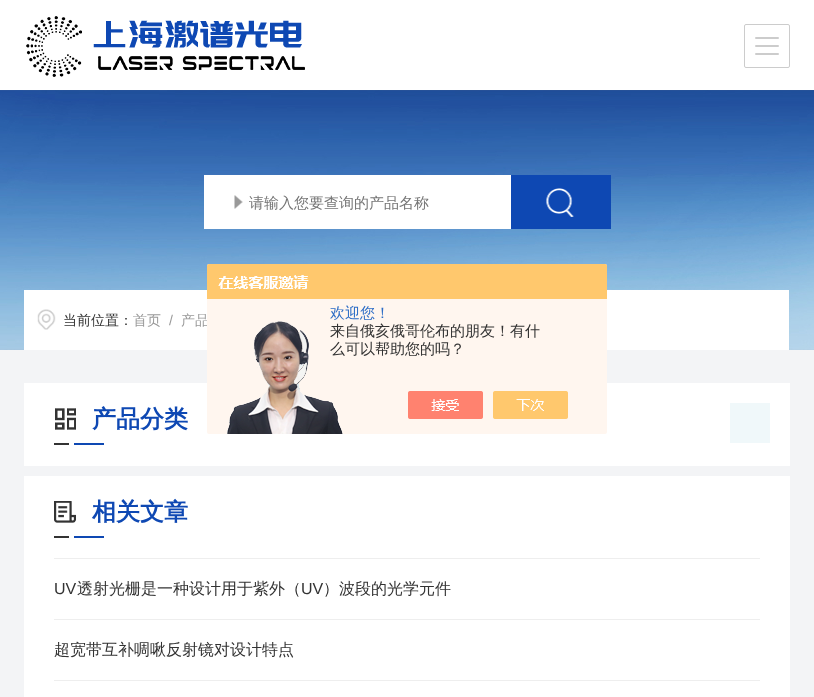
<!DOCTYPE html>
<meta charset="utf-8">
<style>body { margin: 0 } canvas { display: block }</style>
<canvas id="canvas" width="814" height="697"></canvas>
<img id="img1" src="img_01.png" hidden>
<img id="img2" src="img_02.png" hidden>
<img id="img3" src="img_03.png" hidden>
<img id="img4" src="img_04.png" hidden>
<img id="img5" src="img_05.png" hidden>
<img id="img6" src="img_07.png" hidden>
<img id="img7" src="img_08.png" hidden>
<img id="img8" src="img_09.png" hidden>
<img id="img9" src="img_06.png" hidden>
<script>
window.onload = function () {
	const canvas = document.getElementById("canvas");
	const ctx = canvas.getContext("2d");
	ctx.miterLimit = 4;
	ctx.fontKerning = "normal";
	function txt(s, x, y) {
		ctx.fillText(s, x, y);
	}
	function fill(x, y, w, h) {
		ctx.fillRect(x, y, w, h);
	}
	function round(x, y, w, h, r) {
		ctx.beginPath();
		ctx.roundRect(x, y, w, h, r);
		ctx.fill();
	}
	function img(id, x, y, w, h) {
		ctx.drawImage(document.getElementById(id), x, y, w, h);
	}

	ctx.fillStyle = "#FFFFFF";
	fill(0, 0, 814, 697);
	img("img1", 26, 16, 279, 61);
	ctx.beginPath();
	ctx.roundRect(744.5, 24.5, 45, 43, 1.5);
	ctx.strokeStyle = "#CCCCCC";
	ctx.stroke();
	ctx.fillStyle = "#CCCCCC";
	round(755, 37, 24, 2, 1);
	round(755, 45, 24, 2, 1);
	round(755, 53, 24, 2, 1);
	img("img2", 0, 90, 814, 260);
	ctx.fillStyle = "#FFFFFF";
	fill(204, 175, 307, 54);
	img("img3", 234, 195, 9, 14);
	ctx.fillStyle = "#0E48B3";
	fill(511, 175, 100, 54);
	img("img4", 546, 188, 28, 29);
	ctx.fillStyle = "#FFFFFF";
	fill(24, 290, 765, 60);
	img("img5", 37, 309, 19, 21);
	ctx.fillStyle = "#F3F4F6";
	fill(0, 350, 814, 347);
	ctx.fillStyle = "#FFFFFF";
	fill(24, 383, 766, 83);
	img("img6", 55, 408, 21, 22);
	ctx.fillStyle = "#F0F8FA";
	fill(730, 403, 40, 40);
	img("img7", 54, 443, 50, 2);
	ctx.fillStyle = "#FFFFFF";
	fill(24, 476, 766, 221);
	img("img8", 54, 501, 22, 22);
	img("img7", 54, 536, 50, 2);
	ctx.fillStyle = "#EEEEEE";
	fill(54, 558, 706, 1);
	fill(54, 619, 706, 1);
	fill(54, 680, 706, 1);
	ctx.font = "500 15px WenQuanYi Zen Hei";
	ctx.fillStyle = "#757575";
	txt("请输入您要查询的产品名称", 249, 208);
	ctx.font = "500 14px WenQuanYi Zen Hei";
	ctx.fillStyle = "#333333";
	txt("当前位置：", 63, 325);
	ctx.fillStyle = "#999999";
	txt("首页", 133, 325);
	ctx.font = "14px Liberation Sans";
	txt("/", 169, 325);
	ctx.font = "500 14px WenQuanYi Zen Hei";
	txt("产品", 181, 325);
	img("img9", 207, 264, 400, 170);
	ctx.font = "500 15px WenQuanYi Zen Hei";
	ctx.fillStyle = "#2E6EC6";
	txt("欢迎您！", 330, 318);
	ctx.fillStyle = "#333333";
	txt("来自俄亥俄哥伦布的朋友！有什", 330, 336);
	txt("么可以帮助您的吗？", 330, 354);
	ctx.font = "bold 24px WenQuanYi Zen Hei";
	ctx.fillStyle = "#0E48B3";
	txt("产品分类", 92, 427);
	txt("相关文章", 92, 520);
	ctx.font = "16px Liberation Sans";
	ctx.fillStyle = "#333333";
	txt("UV", 54, 594);
	ctx.font = "500 16px WenQuanYi Zen Hei";
	txt("透射光栅是一种设计用于紫外（", 77, 594);
	ctx.font = "16px Liberation Sans";
	txt("UV", 301, 594);
	ctx.font = "500 16px WenQuanYi Zen Hei";
	txt("）波段的光学元件", 323, 594);
	txt("超宽带互补啁啾反射镜对设计特点", 54, 655);
};
</script>
